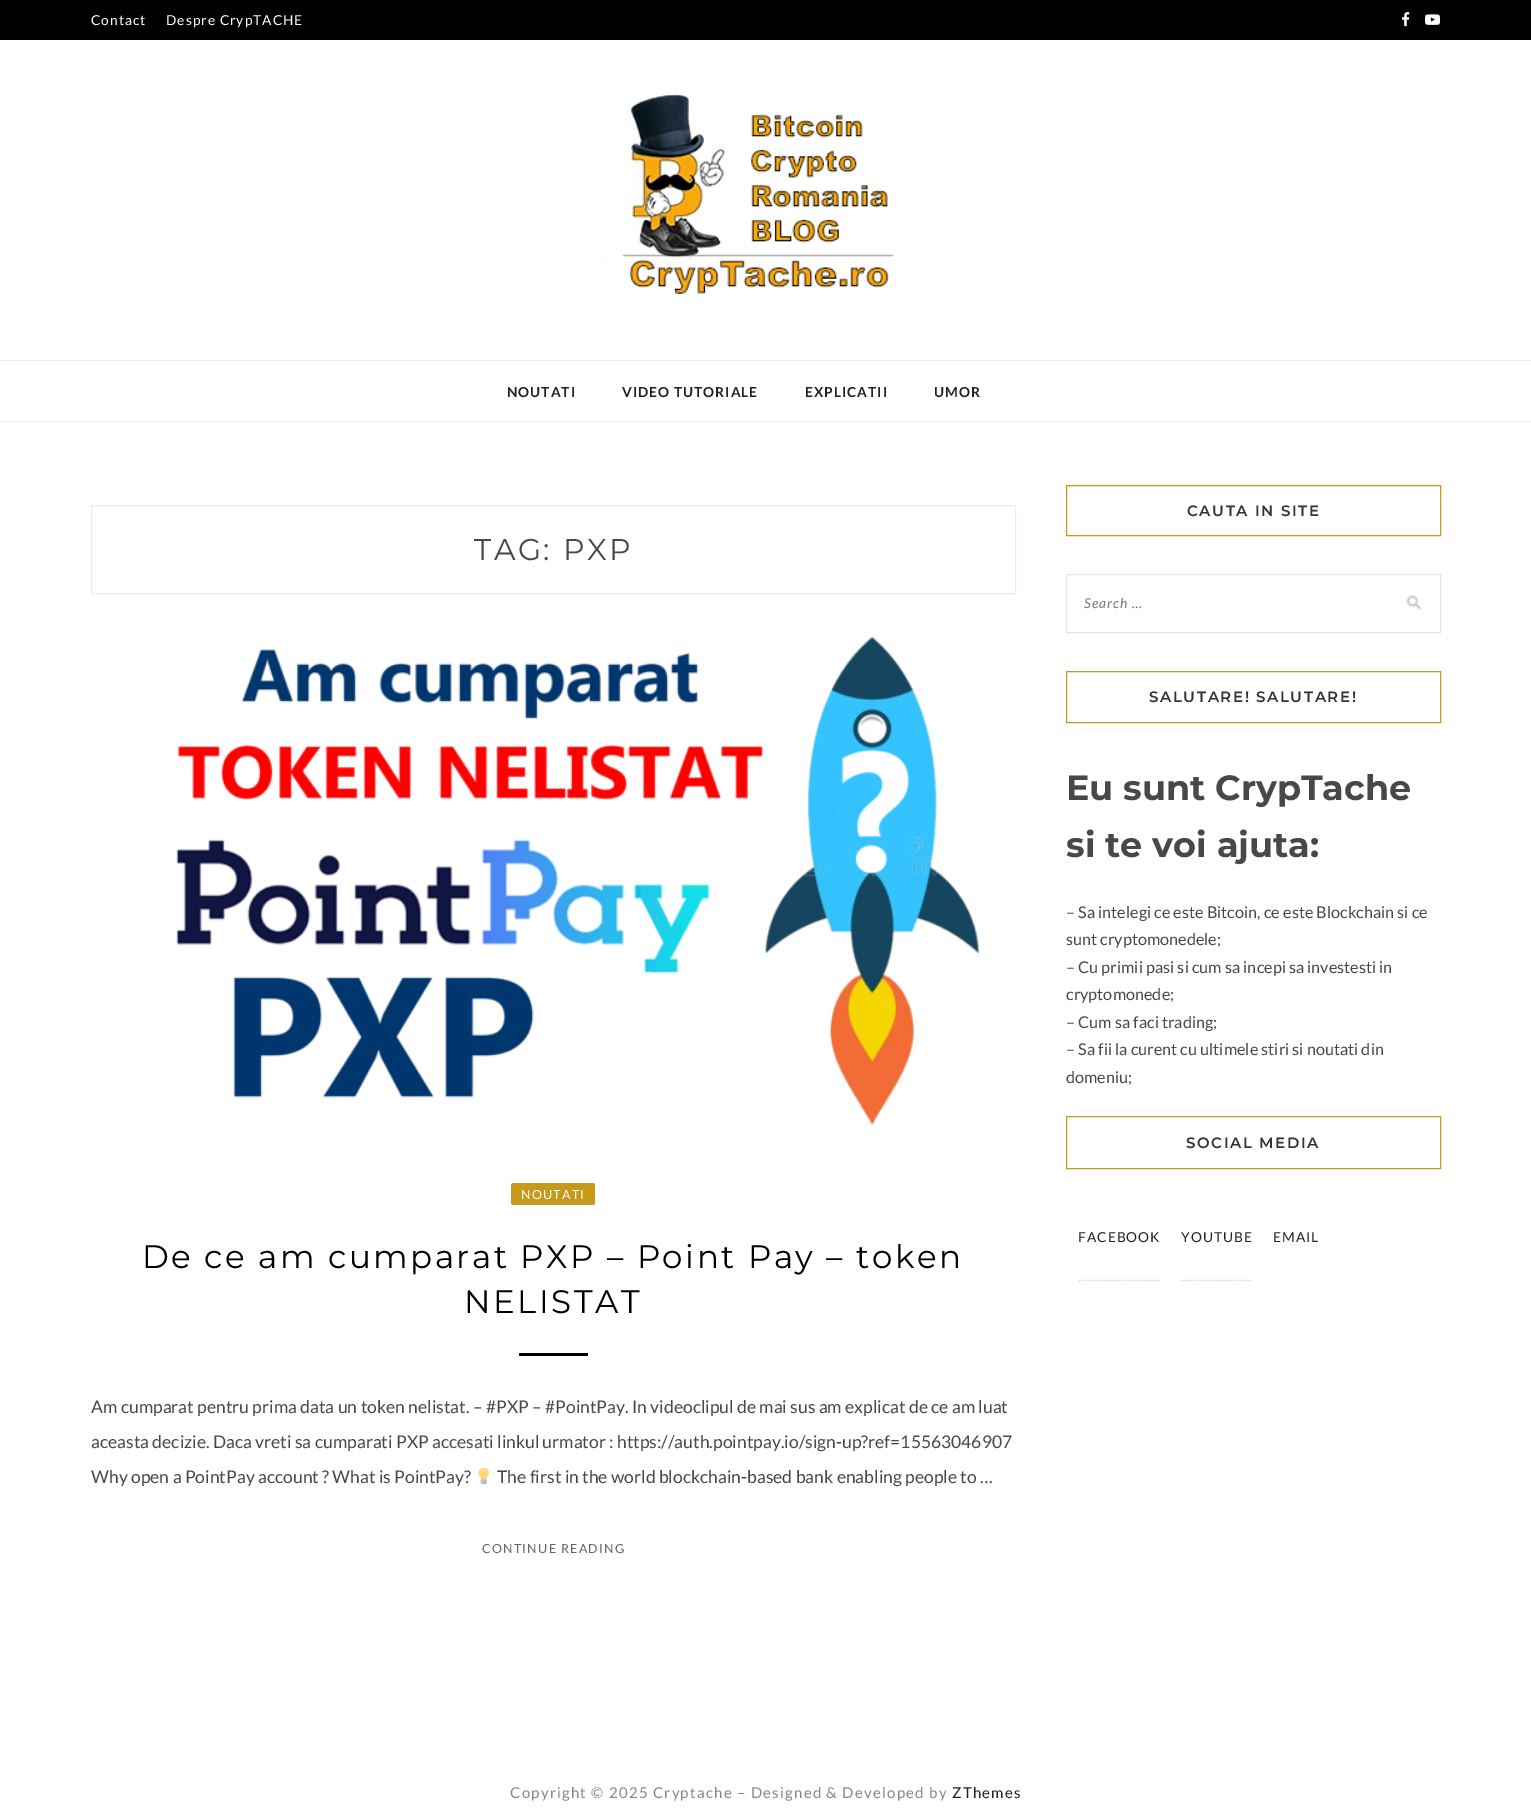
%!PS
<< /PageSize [1531 1810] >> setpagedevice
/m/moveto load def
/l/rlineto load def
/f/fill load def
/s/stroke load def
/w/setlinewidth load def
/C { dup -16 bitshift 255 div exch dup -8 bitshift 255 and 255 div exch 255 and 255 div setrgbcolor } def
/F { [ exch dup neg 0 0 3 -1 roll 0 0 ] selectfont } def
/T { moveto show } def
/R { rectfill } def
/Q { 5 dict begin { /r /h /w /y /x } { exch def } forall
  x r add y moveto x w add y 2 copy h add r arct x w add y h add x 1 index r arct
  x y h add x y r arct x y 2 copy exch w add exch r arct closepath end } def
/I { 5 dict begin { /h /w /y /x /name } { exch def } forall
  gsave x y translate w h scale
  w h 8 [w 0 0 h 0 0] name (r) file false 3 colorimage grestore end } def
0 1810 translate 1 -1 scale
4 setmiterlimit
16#FFFFFF C
0 0 1531 1810 R
16#000000 C
0 0 1531 40 R
/Lato-Regular 13.75 F
16#FFFFFF C
91 25 m 1 0 (Contact) ashow
166 25 m 1 0 (Despre CrypTACHE) ashow
(1.rgb) 1402 12 8 15 I
(2.rgb) 1425 14 15 11 I
(3.rgb) 600 92 303 208 I
16#EEEEEE C
0 360 1531 1 R
0 421 1531 1 R
/Lato-Bold 13.75 F
16#212121 C
507 397 m 1 0 (NOUTATI) ashow
622 397 m 1 0 (VIDEO TUTORIALE) ashow
805 397 m 1 0 (EXPLICATII) ashow
934 397 m 1 0 (UMOR) ashow
16#EDEDED C
91.5 505.5 924 88 rectstroke
/Montserrat-Regular 30 F
16#484848 C
474 560 m 2.5 0 (TAG: PXP) ashow
(4.rgb) 176 636 804 490 I
16#C6991B C
511 1183 84 22 2.5 Q f
/Lato-Regular 12.5 F
16#FFFFFF C
521 1199 m 1.25 0 (NOUTATI) ashow
/Montserrat-Regular 32.5 F
16#000000 C
142 1268 m 2.5 0 (De ce am cumparat PXP – Point Pay – token) ashow
464 1313 m 2.5 0 (NELISTAT) ashow
519 1353 69 3 R
/Lato-Regular 17.5 F
16#484848 C
(Am cumparat pentru prima data un token nelistat. – #PXP – #PointPay. In videoclipul de mai sus am explicat de ce am luat) 91 1413 T
(aceasta decizie. Daca vreti sa cumparati PXP accesati linkul urmator : https://auth.pointpay.io/sign-up?ref=15563046907) 91 1448 T
(Why open a PointPay account ? What is PointPay?) 91 1483 T
(5.rgb) 478 1468 12 17 I
(The first in the world blockchain-based bank enabling people to …) 497 1483 T
/Lato-Regular 12.5 F
16#656565 C
482 1553 m 1.25 0 (CONTINUE READING) ashow
16#C6991B C
1066.5 485.5 374 50 rectstroke
/Montserrat-SemiBold 15 F
16#333333 C
1187 516 m 1.6 0 (CAUTA IN SITE) ashow
(6.rgb) 1406 595 16 15 I
16#E5E5E5 C
1066.5 574.5 374 58 rectstroke
/Lato-Italic 13.75 F
16#757575 C
1084 608 m 1 0 (Search …) ashow
16#C6991B C
1066.5 671.5 374 51 rectstroke
/Montserrat-SemiBold 15 F
16#333333 C
1149 702 m 1.6 0 (SALUTARE! SALUTARE!) ashow
/Montserrat-Bold 35 F
16#484848 C
(Eu sunt CrypTache) 1066 800 T
(si te voi ajuta:) 1066 857 T
/Lato-Regular 16.25 F
(– Sa intelegi ce este Bitcoin, ce este Blockchain si ce) 1066 918 T
(sunt cryptomonedele;) 1066 945 T
(– Cu primii pasi si cum sa incepi sa investesti in) 1066 973 T
(cryptomonede;) 1066 1000 T
(– Cum sa faci trading;) 1066 1028 T
(– Sa fii la curent cu ultimele stiri si noutati din) 1066 1055 T
(domeniu;) 1066 1083 T
16#C6991B C
1066.5 1116.5 374 52 rectstroke
/Montserrat-SemiBold 15 F
16#333333 C
1186 1148 m 1.6 0 (SOCIAL MEDIA) ashow
16#D5D5D5 C
1.2 w
[1.25 1.25] 0 setdash
1079 1280.5 m 81 0 l s
/Lato-Regular 13.75 F
16#212121 C
1078 1242 m 1 0 (FACEBOOK) ashow
16#D5D5D5 C
1181 1280.5 m 71.5 0 l s
16#212121 C
1181 1242 m 1 0 (YOUTUBE) ashow
1273 1242 m 1 0 (EMAIL) ashow
/Lato-Regular 15 F
16#888888 C
510 1798 m 1.25 0 (Copyright © 2025 Cryptache – Designed & Developed by) ashow
16#212121 C
952 1798 m 1.25 0 (ZThemes) ashow
showpage
